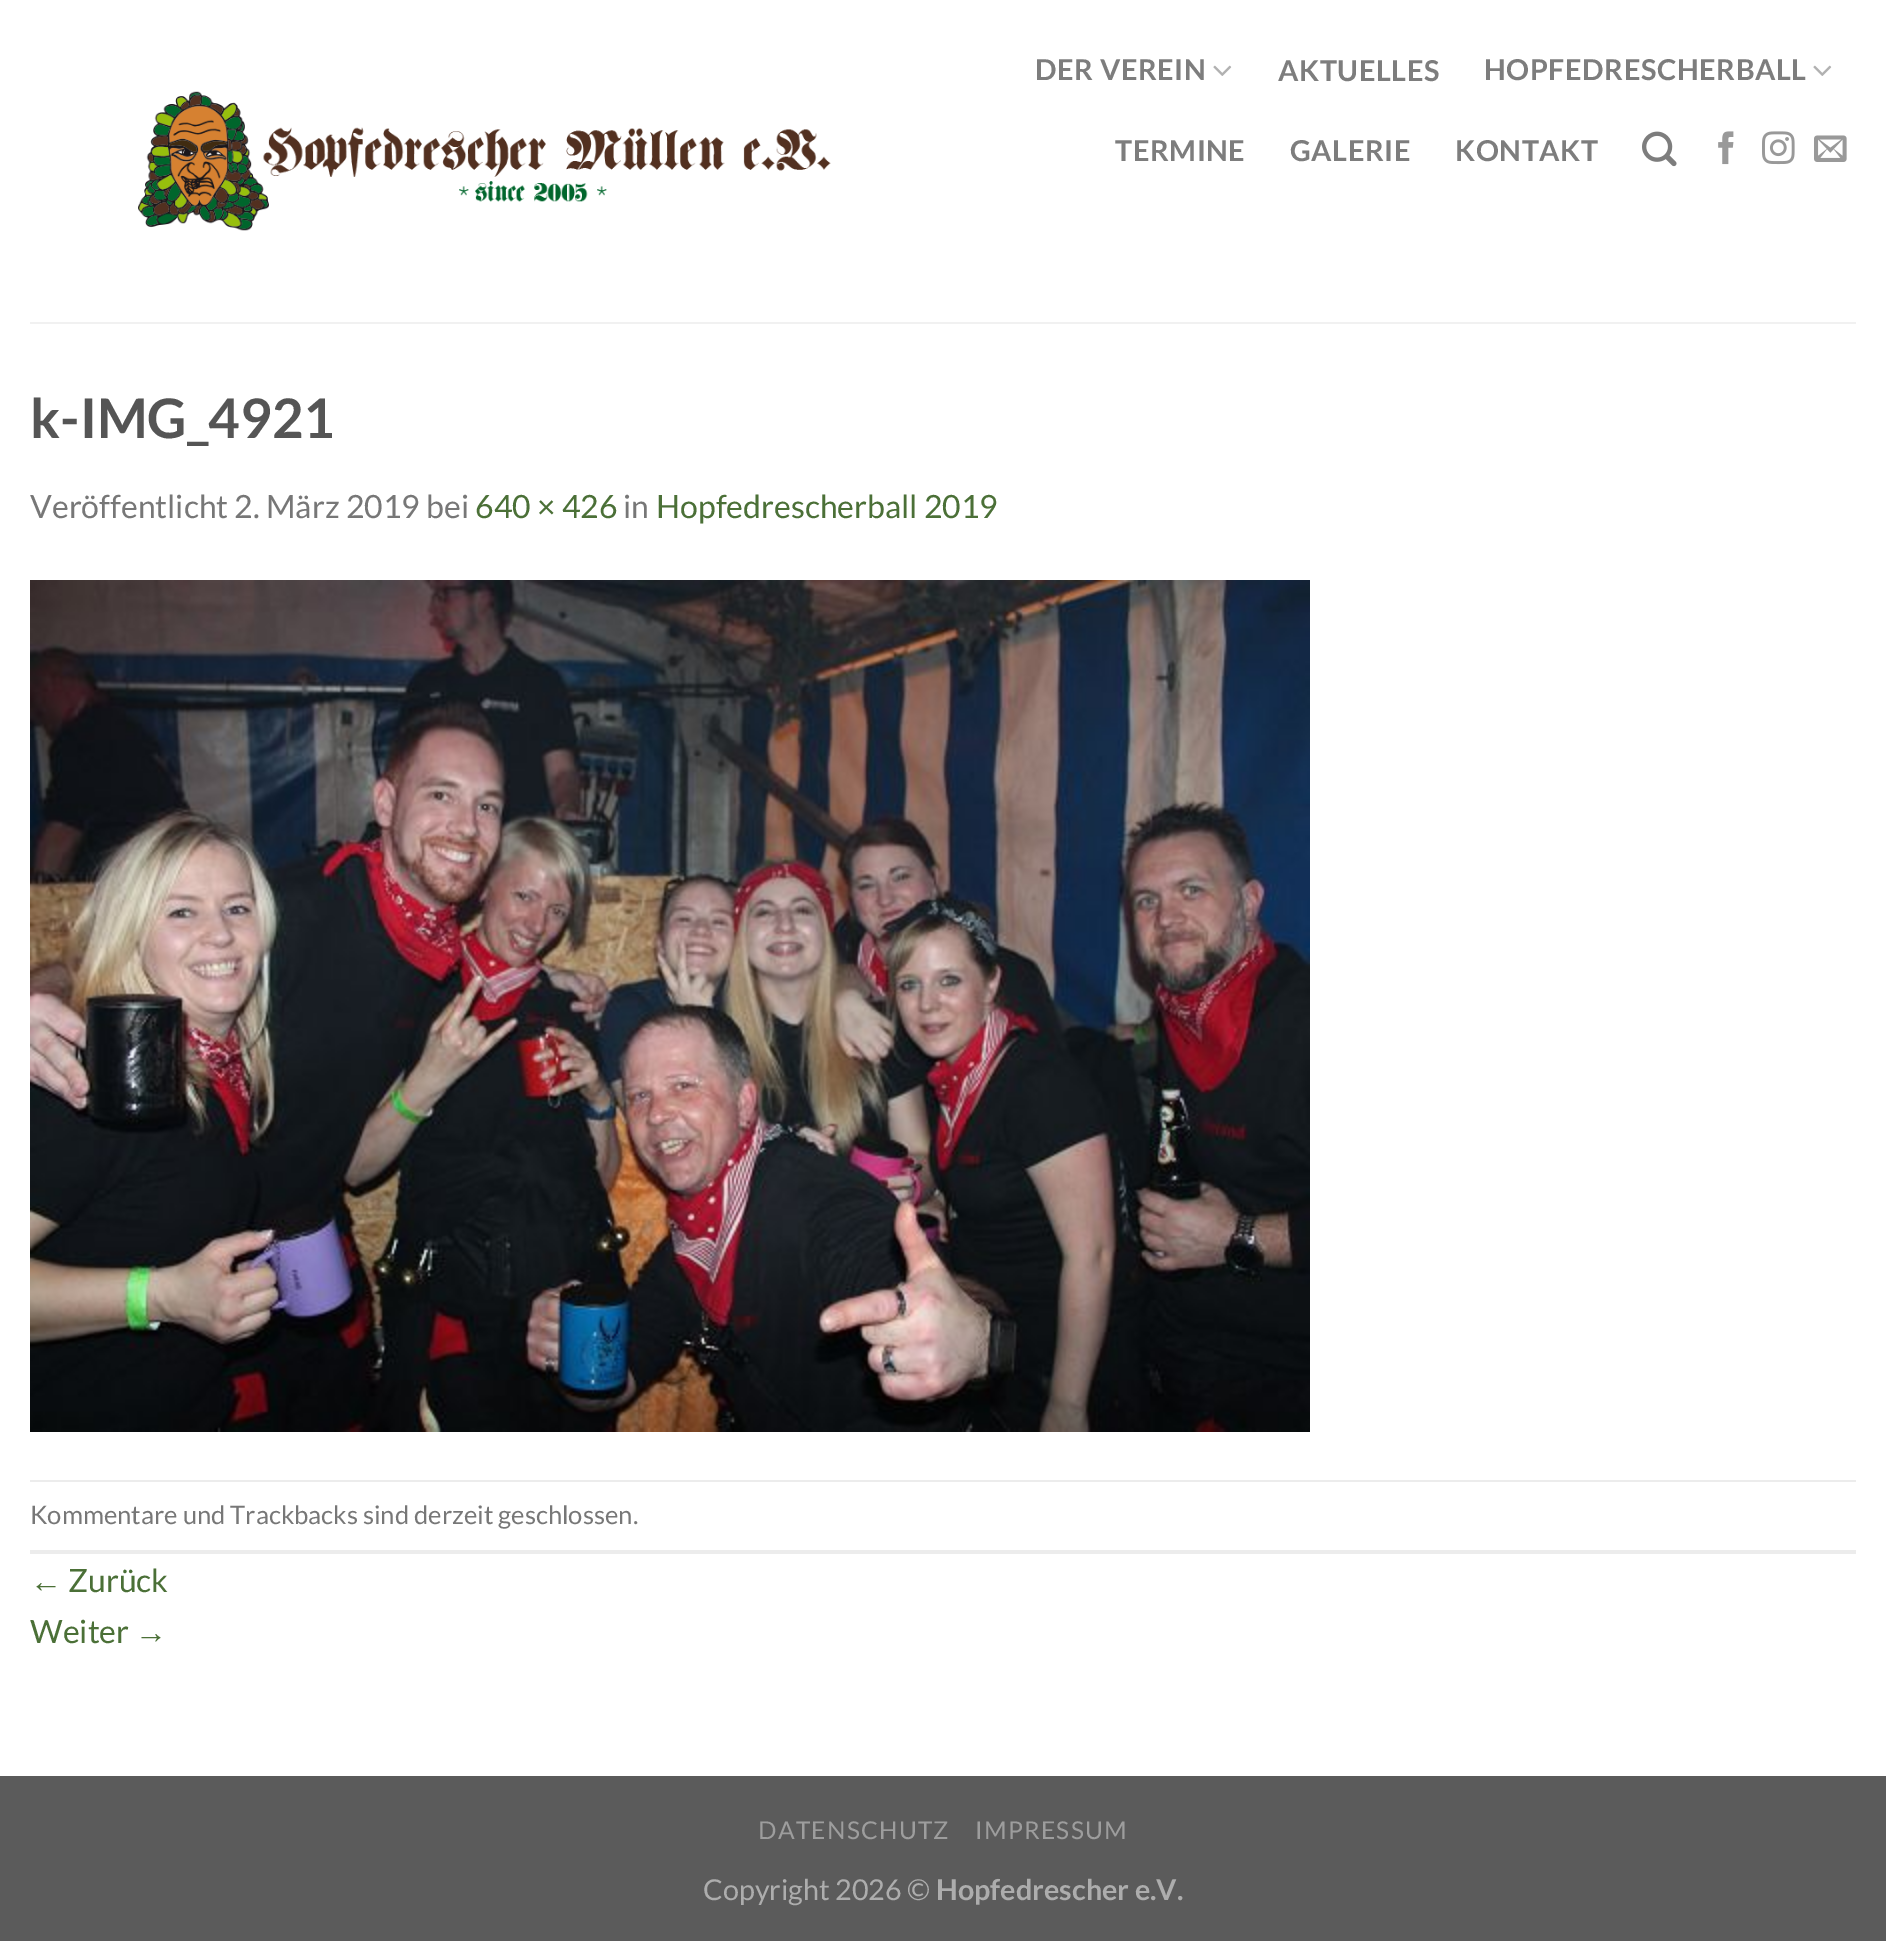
%!PS
<< /PageSize [1886 1941] >> setpagedevice
/m/moveto load def
/C { dup -16 bitshift 255 div exch dup -8 bitshift 255 and 255 div exch 255 and 255 div setrgbcolor } def
/F { [ exch dup neg 0 0 3 -1 roll 0 0 ] selectfont } def
/T { moveto show } def
/R { rectfill } def
/I { 5 dict begin { /h /w /y /x /name } { exch def } forall
  gsave x y translate w h scale
  w h 8 [w 0 0 h 0 0] name (r) file false 3 colorimage grestore end } def
0 1941 translate 1 -1 scale
4 setmiterlimit
16#FFFFFF C
0 0 1886 1941 R
(1.rgb) 138 91 693 140 I
/Lato-Bold 28.75 F
16#7D7D7D C
1035 80 m .6 0 (DER VEREIN) ashow
(2.rgb) 1213 65 19 11 I
1278 81 m .6 0 (AKTUELLES) ashow
1484 80 m .6 0 (HOPFEDRESCHERBALL) ashow
(2.rgb) 1813 65 19 11 I
1115 161 m .6 0 (TERMINE) ashow
1290 161 m .6 0 (GALERIE) ashow
1455 161 m .6 0 (KONTAKT) ashow
(3.rgb) 1642 131 35 36 I
(4.rgb) 1718 131 16 34 I
(5.rgb) 1762 131 33 34 I
(6.rgb) 1814 135 33 27 I
16#F1F1F1 C
30 322 1826 2 R
/Lato-Bold 54.5 F
16#555555 C
(k-IMG_4921) 30 438 T
/Lato-Regular 32 F
16#777777 C
(Veröffentlicht 2. März 2019 bei) 30 518 T
16#4B7037 C
(640 × 426) 475 518 T
16#777777 C
(in) 623 518 T
16#4B7037 C
(Hopfedrescherball 2019) 656 518 T
(7.rgb) 30 580 1280 852 I
16#ECECEC C
30 1480 1826 2 R
30 1550 1826 4 R
/Lato-Regular 25.6 F
16#777777 C
(Kommentare und Trackbacks sind derzeit geschlossen.) 30 1524 T
/LiberationSans-Regular 32 F
16#4B7037 C
(←) 30 1592 T
/Lato-Regular 32 F
(Zurück) 68 1592 T
(Weiter) 30 1643 T
/LiberationSans-Regular 32 F
(→) 135 1643 T
16#5B5B5B C
0 1776 1886 165 R
/Lato-Regular 24.5 F
16#9D9D9D C
758 1839 m 1.25 0 (DATENSCHUTZ) ashow
975 1839 m 1.25 0 (IMPRESSUM) ashow
/Lato-Regular 28.75 F
16#ADADAD C
(Copyright 2026 ©) 703 1900 T
/Lato-Bold 28.75 F
(Hopfedrescher e.V.) 936 1900 T
showpage
